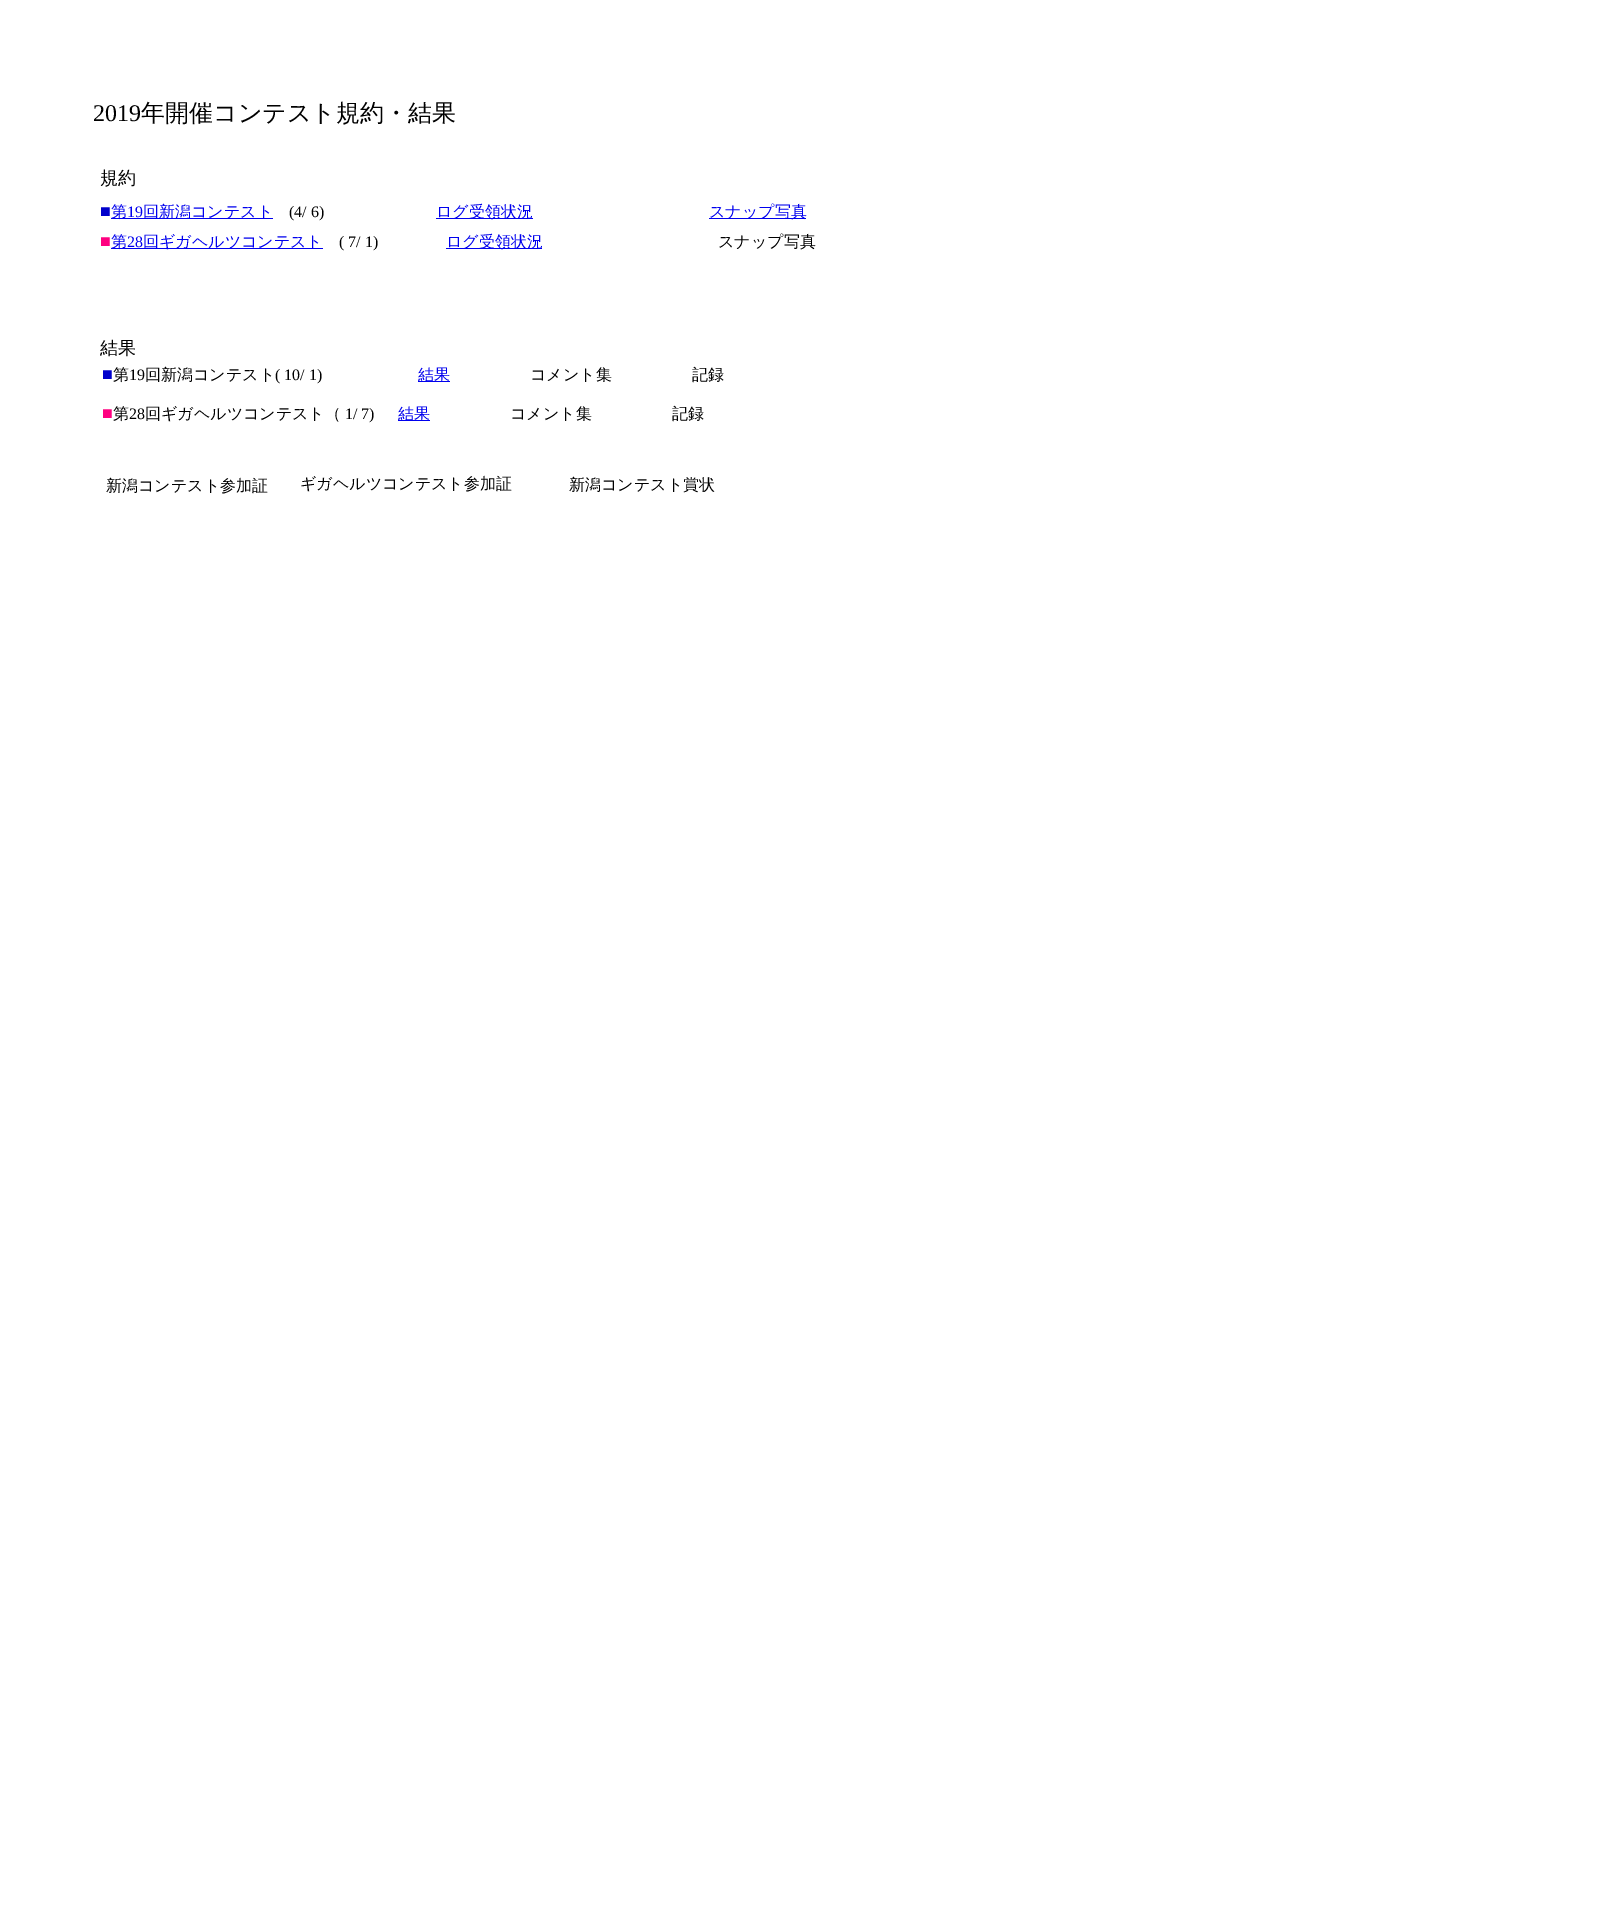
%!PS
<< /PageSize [1605 1923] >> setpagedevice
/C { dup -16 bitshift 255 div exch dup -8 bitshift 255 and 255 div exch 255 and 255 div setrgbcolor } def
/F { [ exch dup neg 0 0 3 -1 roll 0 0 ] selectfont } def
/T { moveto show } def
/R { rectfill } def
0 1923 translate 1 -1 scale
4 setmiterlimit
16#FFFFFF C
0 0 1605 1923 R
/LiberationSerif-Regular 24 F
16#000000 C
(2019) 93 121 T
/WenQuanYiZenHei-Medium 24 F
(年開催コンテスト規約・結果) 141 121 T
/WenQuanYiZenHei-Medium 18 F
(規約) 100 184 T
/LiberationSerif-Regular 18 F
16#0000CC C
(■) 100 217 T
16#0000EE C
111 218 162 1 R
/WenQuanYiZenHei-Medium 16 F
(第) 111 217 T
/LiberationSerif-Regular 16 F
(19) 127 217 T
/WenQuanYiZenHei-Medium 16 F
(回新潟コンテスト) 143 217 T
/LiberationSerif-Regular 16 F
16#000000 C
(\(4/ 6\)) 289 217 T
16#0000EE C
436 218 97 1 R
/WenQuanYiZenHei-Medium 16 F
(ログ受領状況) 436 217 T
709 218 97 1 R
(スナップ写真) 709 217 T
/LiberationSerif-Regular 18 F
16#FF0080 C
(■) 100 247 T
16#0000EE C
111 248 212 1 R
/WenQuanYiZenHei-Medium 16 F
(第) 111 247 T
/LiberationSerif-Regular 16 F
(28) 127 247 T
/WenQuanYiZenHei-Medium 16 F
(回ギガヘルツコンテスト) 143 247 T
/LiberationSerif-Regular 16 F
16#000000 C
(\( 7/ 1\)) 339 247 T
16#0000EE C
446 248 96 1 R
/WenQuanYiZenHei-Medium 16 F
(ログ受領状況) 446 247 T
16#000000 C
(スナップ写真) 718 247 T
/WenQuanYiZenHei-Medium 18 F
(結果) 100 354 T
/LiberationSerif-Regular 18 F
16#0000CC C
(■) 102 380 T
/WenQuanYiZenHei-Medium 16 F
16#000000 C
(第) 113 380 T
/LiberationSerif-Regular 16 F
(19) 129 380 T
/WenQuanYiZenHei-Medium 16 F
(回新潟コンテスト) 145 380 T
/LiberationSerif-Regular 16 F
(\( 10/ 1\)) 275 380 T
16#0000EE C
418 381 32 1 R
/WenQuanYiZenHei-Medium 16 F
(結果) 418 380 T
16#000000 C
(コメント集　　　　　記録) 530 380 T
/LiberationSerif-Regular 18 F
16#FF0080 C
(■) 102 419 T
/WenQuanYiZenHei-Medium 16 F
16#000000 C
(第) 113 419 T
/LiberationSerif-Regular 16 F
(28) 129 419 T
/WenQuanYiZenHei-Medium 16 F
(回ギガヘルツコンテスト（) 145 419 T
/LiberationSerif-Regular 16 F
(1/ 7\)) 345 419 T
16#0000EE C
398 420 32 1 R
/WenQuanYiZenHei-Medium 16 F
(結果) 398 419 T
16#000000 C
(コメント集　　　　　記録) 510 419 T
(新潟コンテスト参加証) 106 491 T
(ギガヘルツコンテスト参加証) 300 489 T
(新潟コンテスト賞状) 569 490 T
showpage
